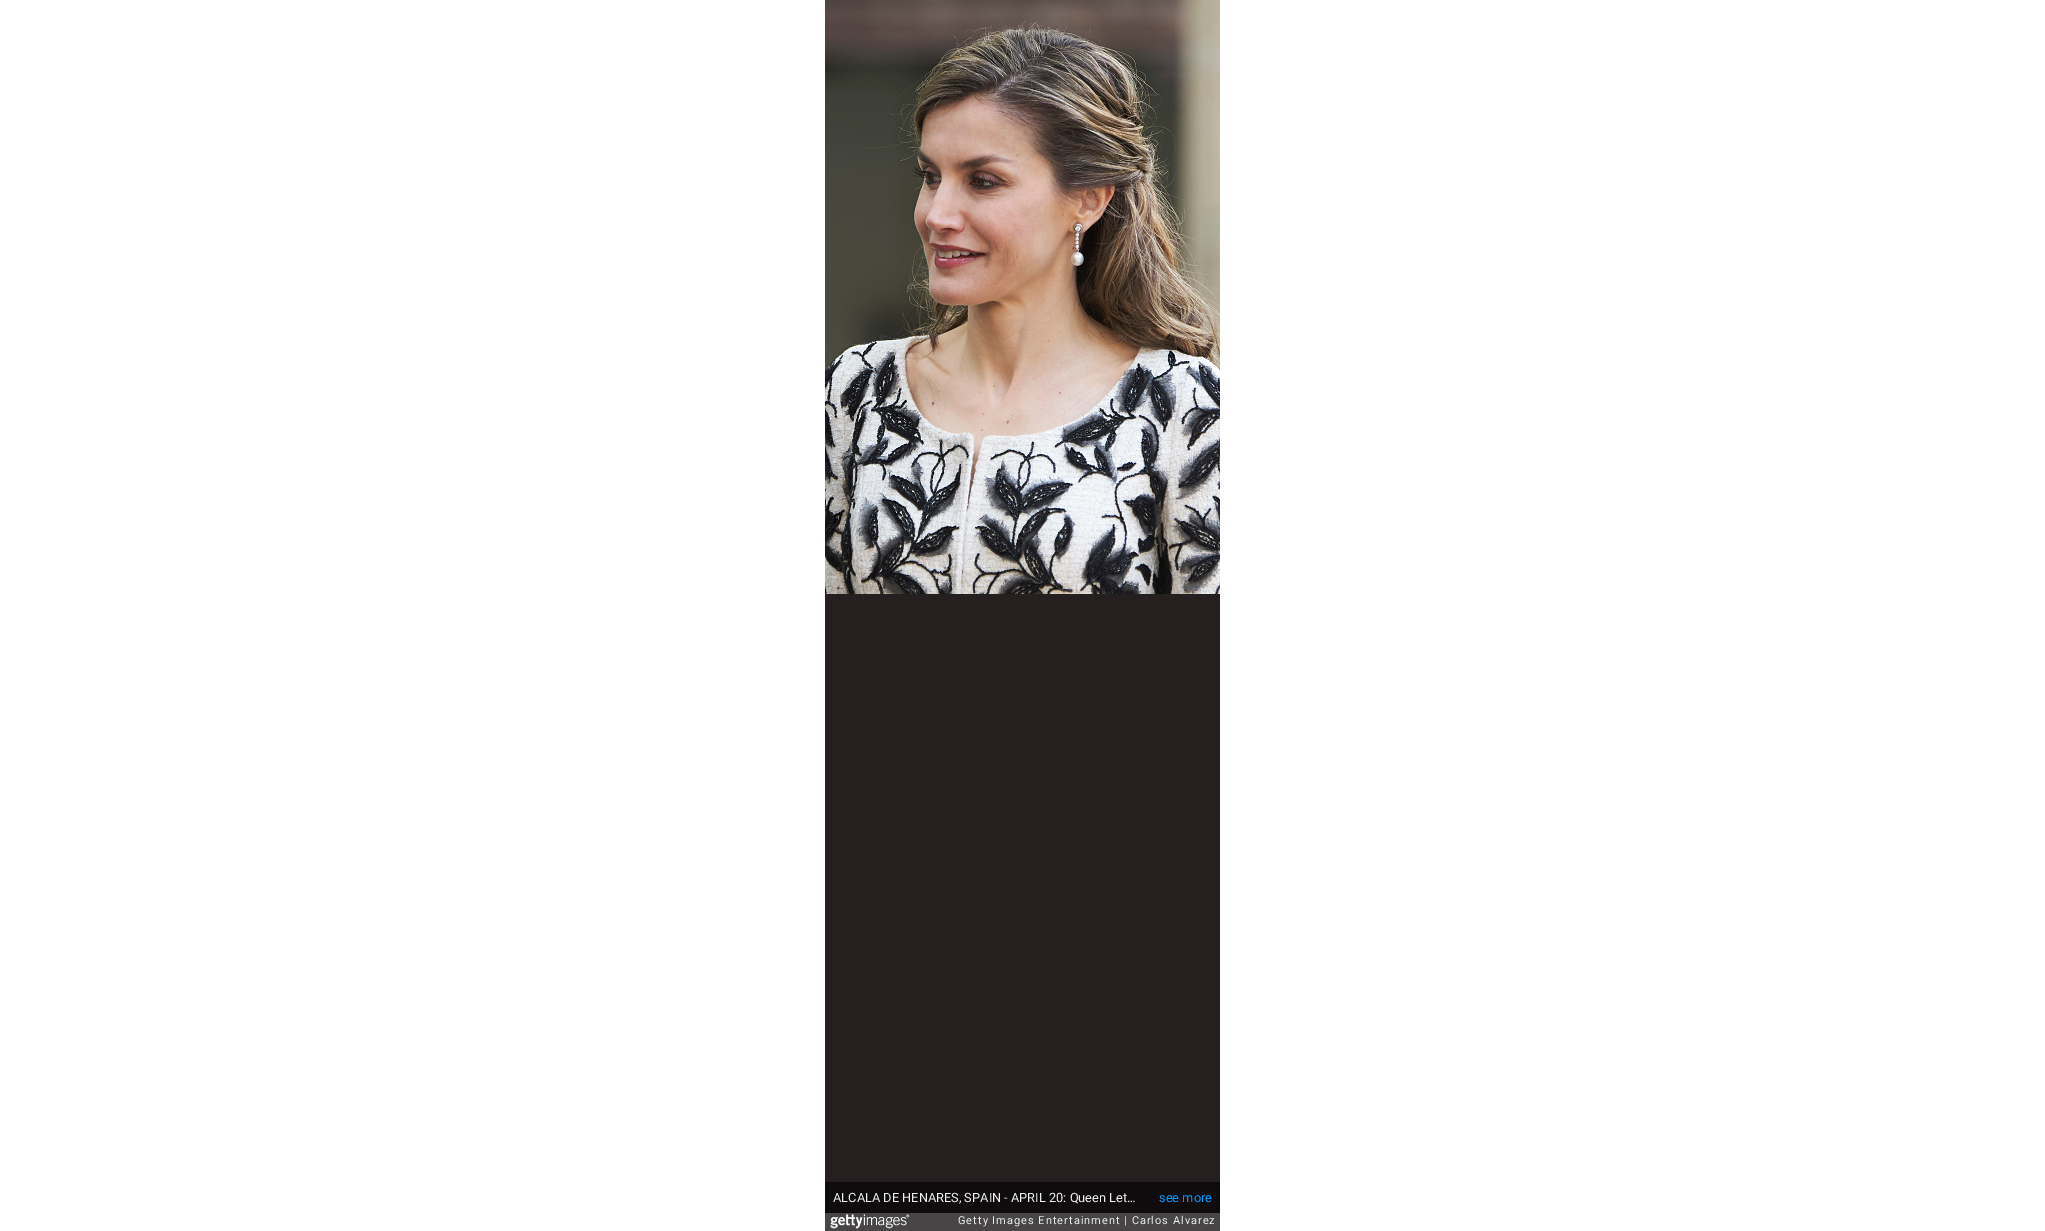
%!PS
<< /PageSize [2045 1231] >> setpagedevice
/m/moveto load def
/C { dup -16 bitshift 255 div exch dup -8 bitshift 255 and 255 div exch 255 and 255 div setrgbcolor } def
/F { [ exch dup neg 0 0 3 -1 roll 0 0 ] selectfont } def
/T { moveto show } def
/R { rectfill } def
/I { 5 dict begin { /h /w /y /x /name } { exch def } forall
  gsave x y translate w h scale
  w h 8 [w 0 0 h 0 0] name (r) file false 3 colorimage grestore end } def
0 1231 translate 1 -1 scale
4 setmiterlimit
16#FFFFFF C
0 0 2045 1231 R
16#251F20 C
825 594 395 588 R
(1.rgb) 825 0 395 594 I
16#0F0C0D C
825 1182 395 31 R
/Roboto-Regular 12.8 F
16#EEEEEE C
(ALCALA DE HENARES, SPAIN - APRIL 20: Queen Let…) 833 1202 T
16#0099FF C
(see more) 1159 1202 T
16#474545 C
825 1213 395 18 R
(2.rgb) 830 1214 80 15 I
/Roboto-Regular 11 F
16#EEEEEE C
958 1224 m 1 0 (Getty Images Entertainment | Carlos Alvarez) ashow
showpage
